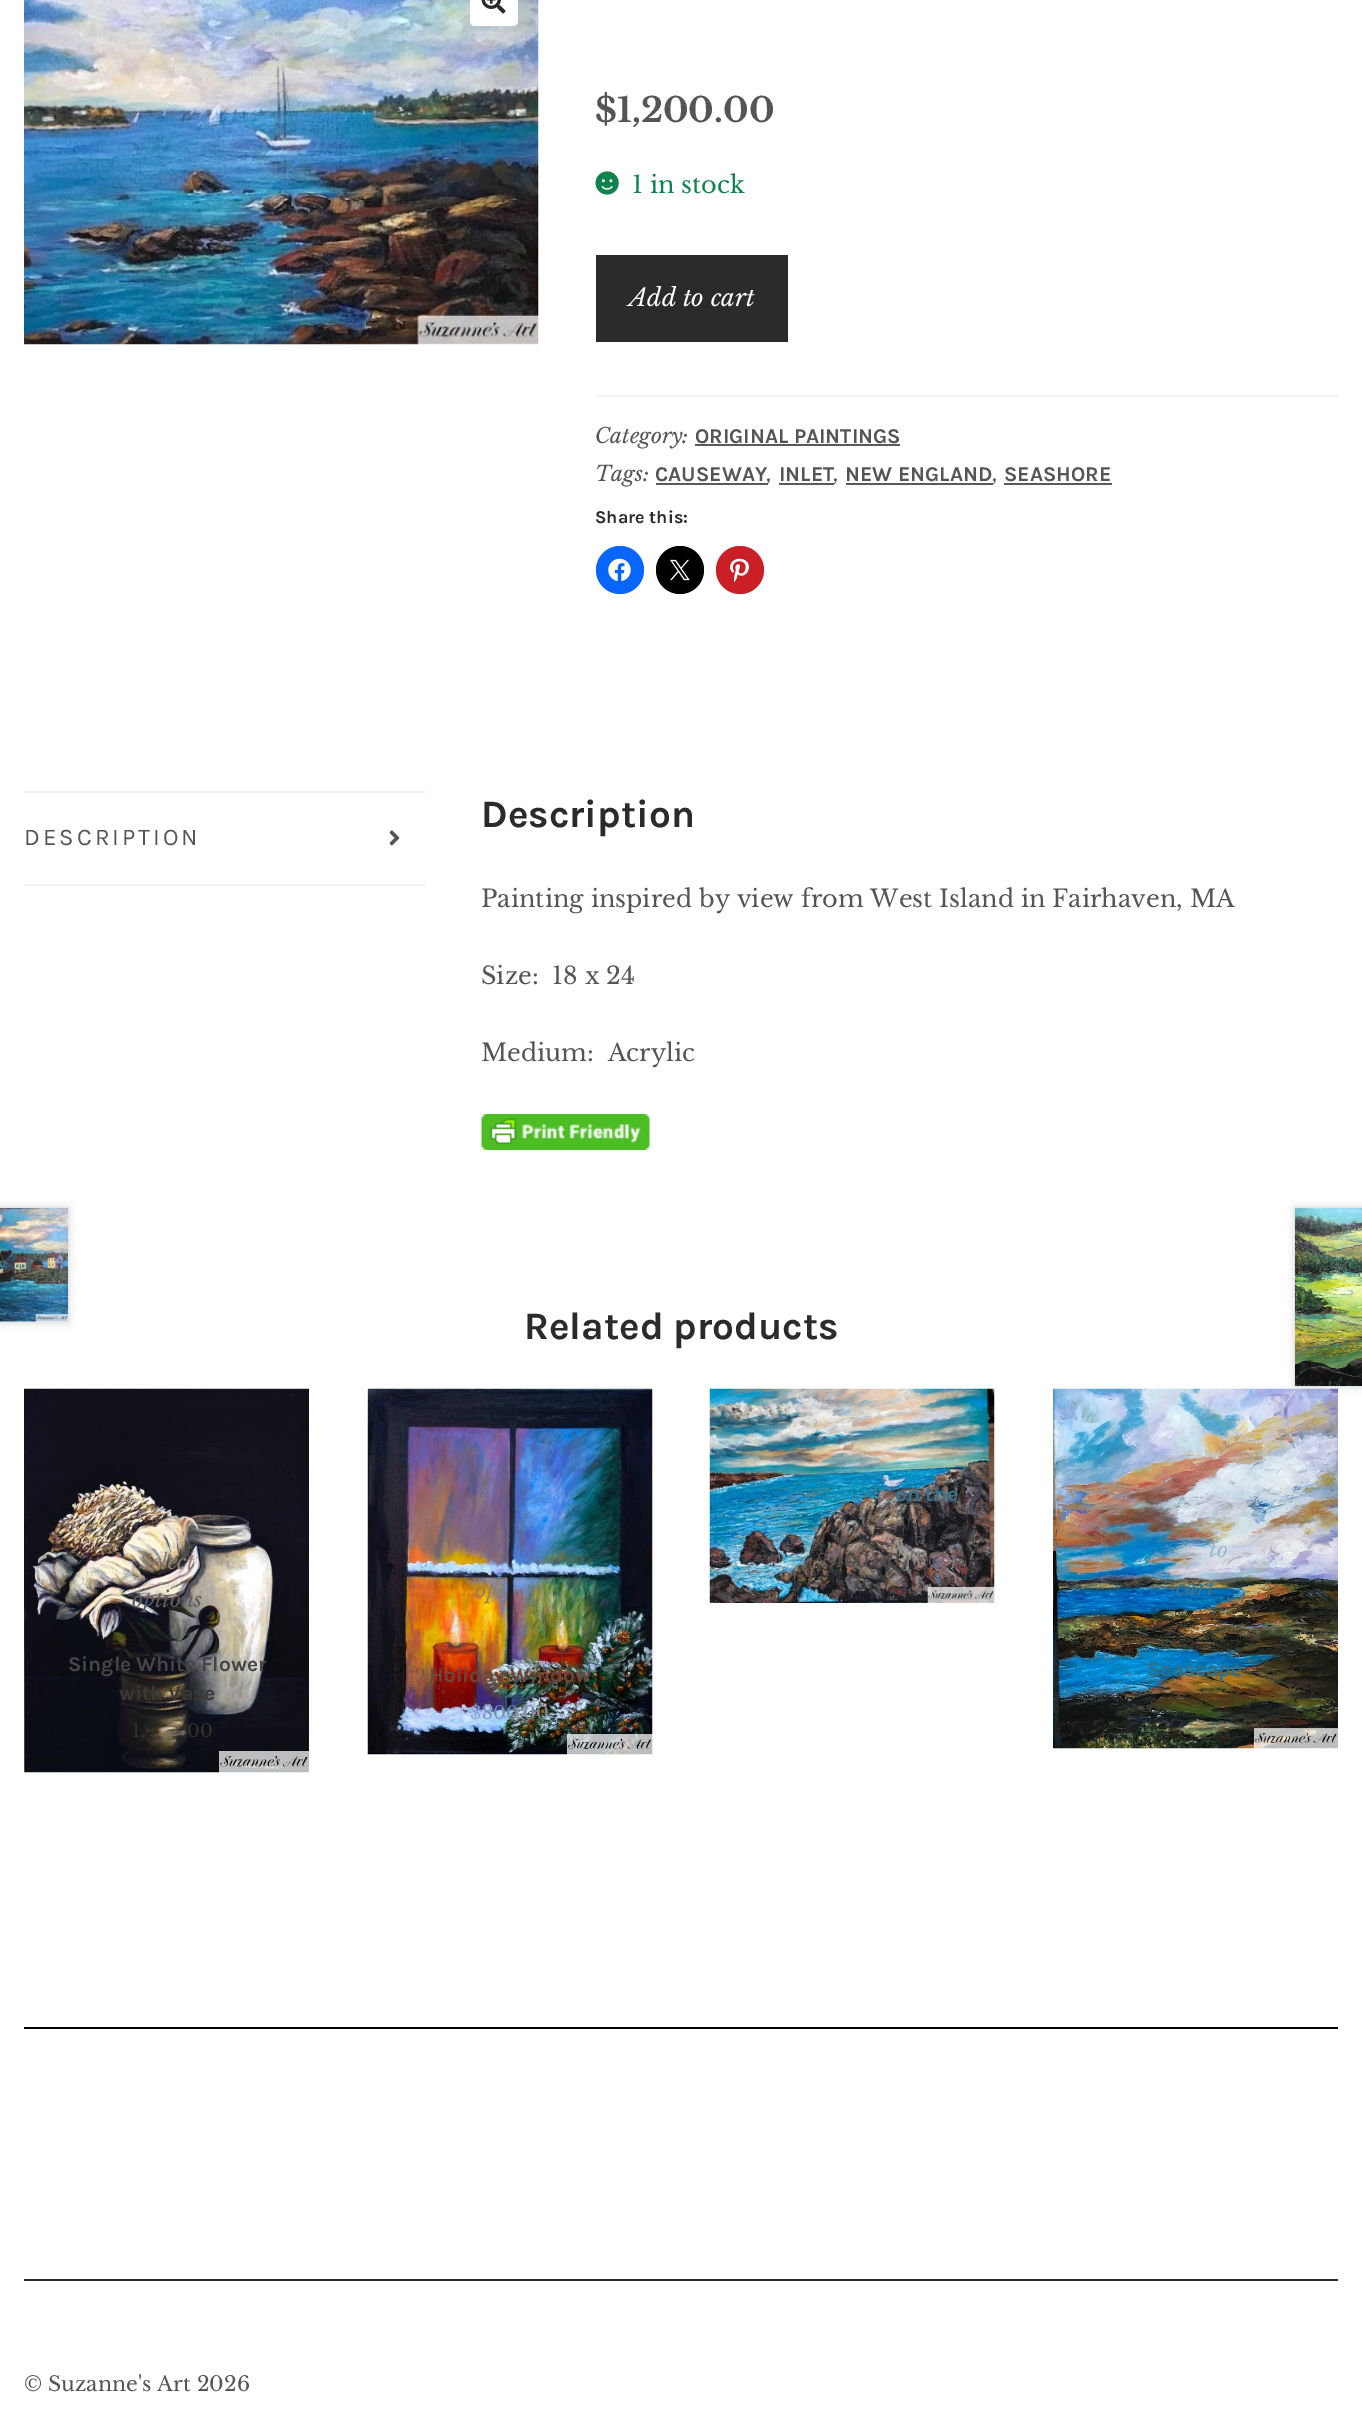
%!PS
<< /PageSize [1362 2415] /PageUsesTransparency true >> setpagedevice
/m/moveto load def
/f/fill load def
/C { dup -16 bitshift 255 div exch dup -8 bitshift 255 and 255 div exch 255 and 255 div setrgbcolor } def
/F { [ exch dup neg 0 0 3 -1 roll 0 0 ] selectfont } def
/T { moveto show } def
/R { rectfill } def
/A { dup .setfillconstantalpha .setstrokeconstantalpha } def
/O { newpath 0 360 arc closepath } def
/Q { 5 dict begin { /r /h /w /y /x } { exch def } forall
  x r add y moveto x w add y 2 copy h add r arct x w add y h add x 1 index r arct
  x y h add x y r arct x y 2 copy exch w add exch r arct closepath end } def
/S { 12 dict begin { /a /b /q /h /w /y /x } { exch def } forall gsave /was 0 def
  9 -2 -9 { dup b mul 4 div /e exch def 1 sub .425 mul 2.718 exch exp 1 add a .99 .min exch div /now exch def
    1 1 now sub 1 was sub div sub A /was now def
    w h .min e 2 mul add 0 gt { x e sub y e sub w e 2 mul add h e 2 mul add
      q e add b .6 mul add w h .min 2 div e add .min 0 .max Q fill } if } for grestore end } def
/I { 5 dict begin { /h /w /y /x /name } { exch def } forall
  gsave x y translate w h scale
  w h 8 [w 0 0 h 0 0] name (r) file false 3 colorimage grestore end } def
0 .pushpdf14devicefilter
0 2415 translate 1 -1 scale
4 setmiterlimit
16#FFFFFF C
0 0 1362 2415 R
(2.rgb) 24 0 515 345 I
470 -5 48 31 5 Q f
(1.rgb) 481 0 25 14 I
/LibreBaskerville-Bold 34 F
16#555555 C
($1,200.00) 595 122 T
(3.rgb) 595 171 24 24 I
/LibreBaskerville-Regular 24 F
16#0F834D C
(1 in stock) 632 193 T
16#2B2B2B C
596 255 192 87 R
/LibreBaskerville-Italic 24 F
16#FFFFFF C
(Add to cart) 629 306 T
16#F2F2F2 C
596 395 742 2 R
/LibreBaskerville-Italic 21 F
16#555555 C
(Category:) 595 443 T
/Karla-Bold 21 F
(ORIGINAL PAINTINGS) 695 443 T
16#5A5A5A C
695 444 205 2 R
/LibreBaskerville-Italic 21 F
16#555555 C
(Tags:) 595 481 T
/Karla-Bold 21 F
(CAUSEWAY) 655 481 T
16#5A5A5A C
656 483 112 2 R
/LibreBaskerville-Italic 21 F
16#555555 C
(,) 767 481 T
/Karla-Bold 21 F
(INLET) 779 481 T
16#5A5A5A C
779 483 55 2 R
/LibreBaskerville-Italic 21 F
16#555555 C
(,) 834 481 T
/Karla-Bold 21 F
(NEW ENGLAND) 845 481 T
16#5A5A5A C
846 483 147 2 R
/LibreBaskerville-Italic 21 F
16#555555 C
(,) 993 481 T
/Karla-Bold 21 F
(SEASHORE) 1004 481 T
16#5A5A5A C
1004 483 108 2 R
/Karla-Bold 18 F
16#2B2B2B C
(Share this:) 595 523 T
16#0866FF C
620 570 24 O f
(4.rgb) 608 558 23 24 I
16#000000 C
680 570 24 O f
(5.rgb) 670 559 20 22 I
16#CA1F27 C
740 570 24 O f
(6.rgb) 730 558 19 24 I
16#F2F2F2 C
24 791 401 2 R
24 884 401 2 R
/Karla-Regular 24 F
16#555555 C
24 845 m 3 0 (DESCRIPTION) ashow
(7.rgb) 389 830 11 16 I
/Karla-Bold 38.75 F
16#2B2B2B C
(Description) 481 827 T
/LibreBaskerville-Regular 24 F
16#555555 C
(Painting inspired by view from West Island in Fairhaven, MA) 481 907 T
(Size:  18 x 24) 481 984 T
(Medium:  Acrylic) 481 1061 T
(8.rgb) 481 1114 169 36 I
16#000000 C
-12 1208 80 114 0 4 .2 S
16#FFFFFF C
0 1321 68 1 R
(9.rgb) 0 1208 68 114 I
(14.rgb) 1053 1388 285 361 I
16#000000 C
1295 1208 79 178 0 4 .2 S
(10.rgb) 1295 1208 67 178 I
/Karla-Bold 38.75 F
16#2B2B2B C
(Related products) 524 1339 T
(11.rgb) 709 1388 286 215 I
/Karla-Bold 21 F
16#337591 C
(on the) 895 1501 T
/LibreBaskerville-Regular 18 F
16#544C49 C
(2,400.00) 817 1567 T
(12.rgb) 24 1388 285 385 I
/LibreBaskerville-Italic 21 F
16#8D8174 C
(Select) 139 1569 T
16#605D60 C
(options) 132 1607 T
/Karla-Bold 21 F
16#454548 C
(Single White Flower) 68 1671 T
16#3B3834 C
(with Vase) 119 1700 T
/LibreBaskerville-Regular 18 F
16#36312D C
(1,) 132 1737 T
(00) 187 1737 T
(13.rgb) 367 1388 286 367 I
/LibreBaskerville-Italic 21 F
16#656B98 C
(t) 529 1560 T
16#91805C C
(opt) 475 1598 T
/Karla-Bold 21 F
16#6E453A C
(Holiday Window) 429 1682 T
/LibreBaskerville-Regular 18 F
16#93A4D1 C
($) 470 1719 T
16#7B8EA5 C
(800.00) 482 1719 T
/LibreBaskerville-Italic 21 F
16#9BB8CD C
(to) 1209 1557 T
16#3E748B C
(cart) 1176 1595 T
/Karla-Bold 21 F
16#2F7087 C
(Seascape) 1147 1676 T
/LibreBaskerville-Regular 18 F
16#35372C C
($) 1149 1713 T
16#000000 C
24 2027 1314 2 R
16#2B2B2B C
24 2279 1314 2 R
/LibreBaskerville-Regular 20.5 F
16#555555 C
(© Suzanne's Art 2026) 24 2391 T
.poppdf14devicefilter showpage
